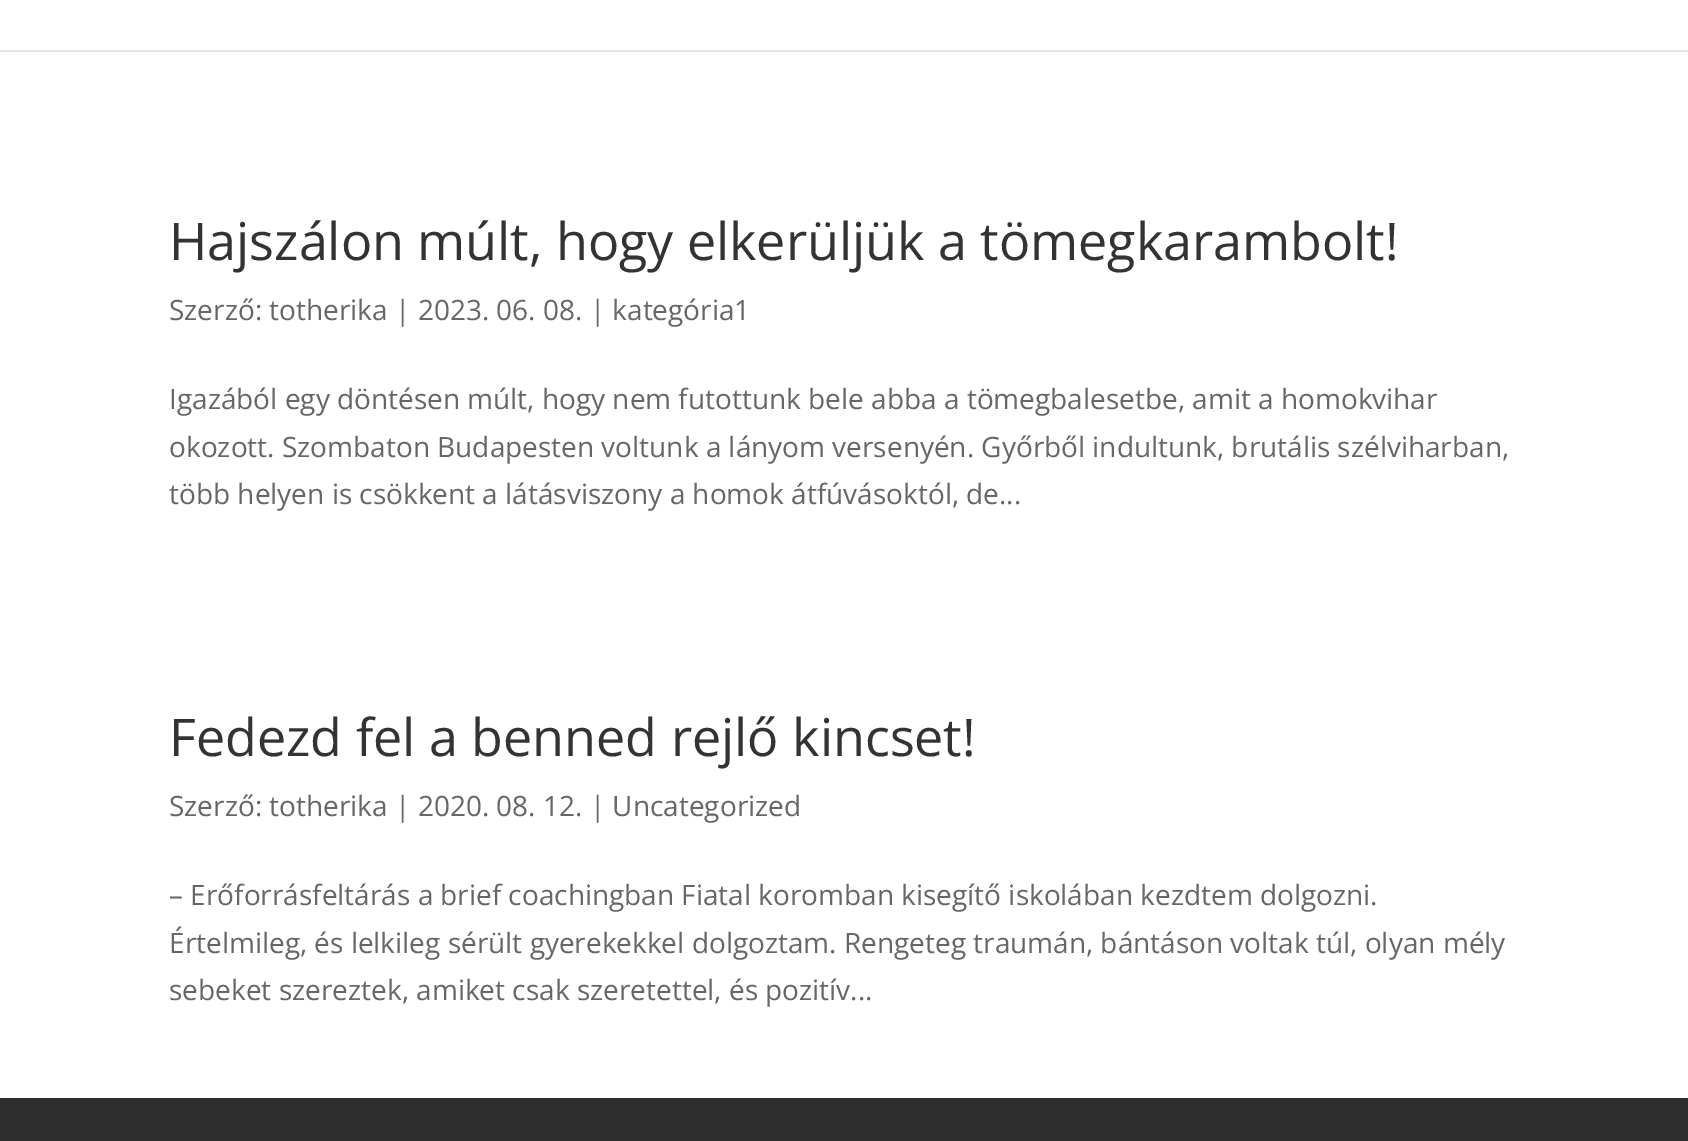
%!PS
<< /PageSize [1688 1141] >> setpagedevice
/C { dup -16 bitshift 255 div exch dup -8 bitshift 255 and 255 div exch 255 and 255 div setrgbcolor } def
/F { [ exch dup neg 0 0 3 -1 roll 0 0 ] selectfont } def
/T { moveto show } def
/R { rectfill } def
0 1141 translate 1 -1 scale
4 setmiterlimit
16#FFFFFF C
0 0 1688 1141 R
16#E6E6E6 C
0 50 1688 2 R
/OpenSans-Regular 52 F
16#333333 C
(Hajszálon múlt, hogy elkerüljük a tömegkarambolt!) 169 260 T
/OpenSans-Regular 28 F
16#666666 C
(Szerző: totherika | 2023. 06. 08. | kategória1) 169 320 T
(Igazából egy döntésen múlt, hogy nem futottunk bele abba a tömegbalesetbe, amit a homokvihar) 169 409 T
(okozott. Szombaton Budapesten voltunk a lányom versenyén. Győrből indultunk, brutális szélviharban,) 169 457 T
(több helyen is csökkent a látásviszony a homok átfúvásoktól, de...) 169 504 T
/OpenSans-Regular 52 F
16#333333 C
(Fedezd fel a benned rejlő kincset!) 169 756 T
/OpenSans-Regular 28 F
16#666666 C
(Szerző: totherika | 2020. 08. 12. | Uncategorized) 169 816 T
(– Erőforrásfeltárás a brief coachingban Fiatal koromban kisegítő iskolában kezdtem dolgozni.) 169 905 T
(Értelmileg, és lelkileg sérült gyerekekkel dolgoztam. Rengeteg traumán, bántáson voltak túl, olyan mély) 169 953 T
(sebeket szereztek, amiket csak szeretettel, és pozitív...) 169 1000 T
16#2D2D2D C
0 1098 1688 43 R
showpage
